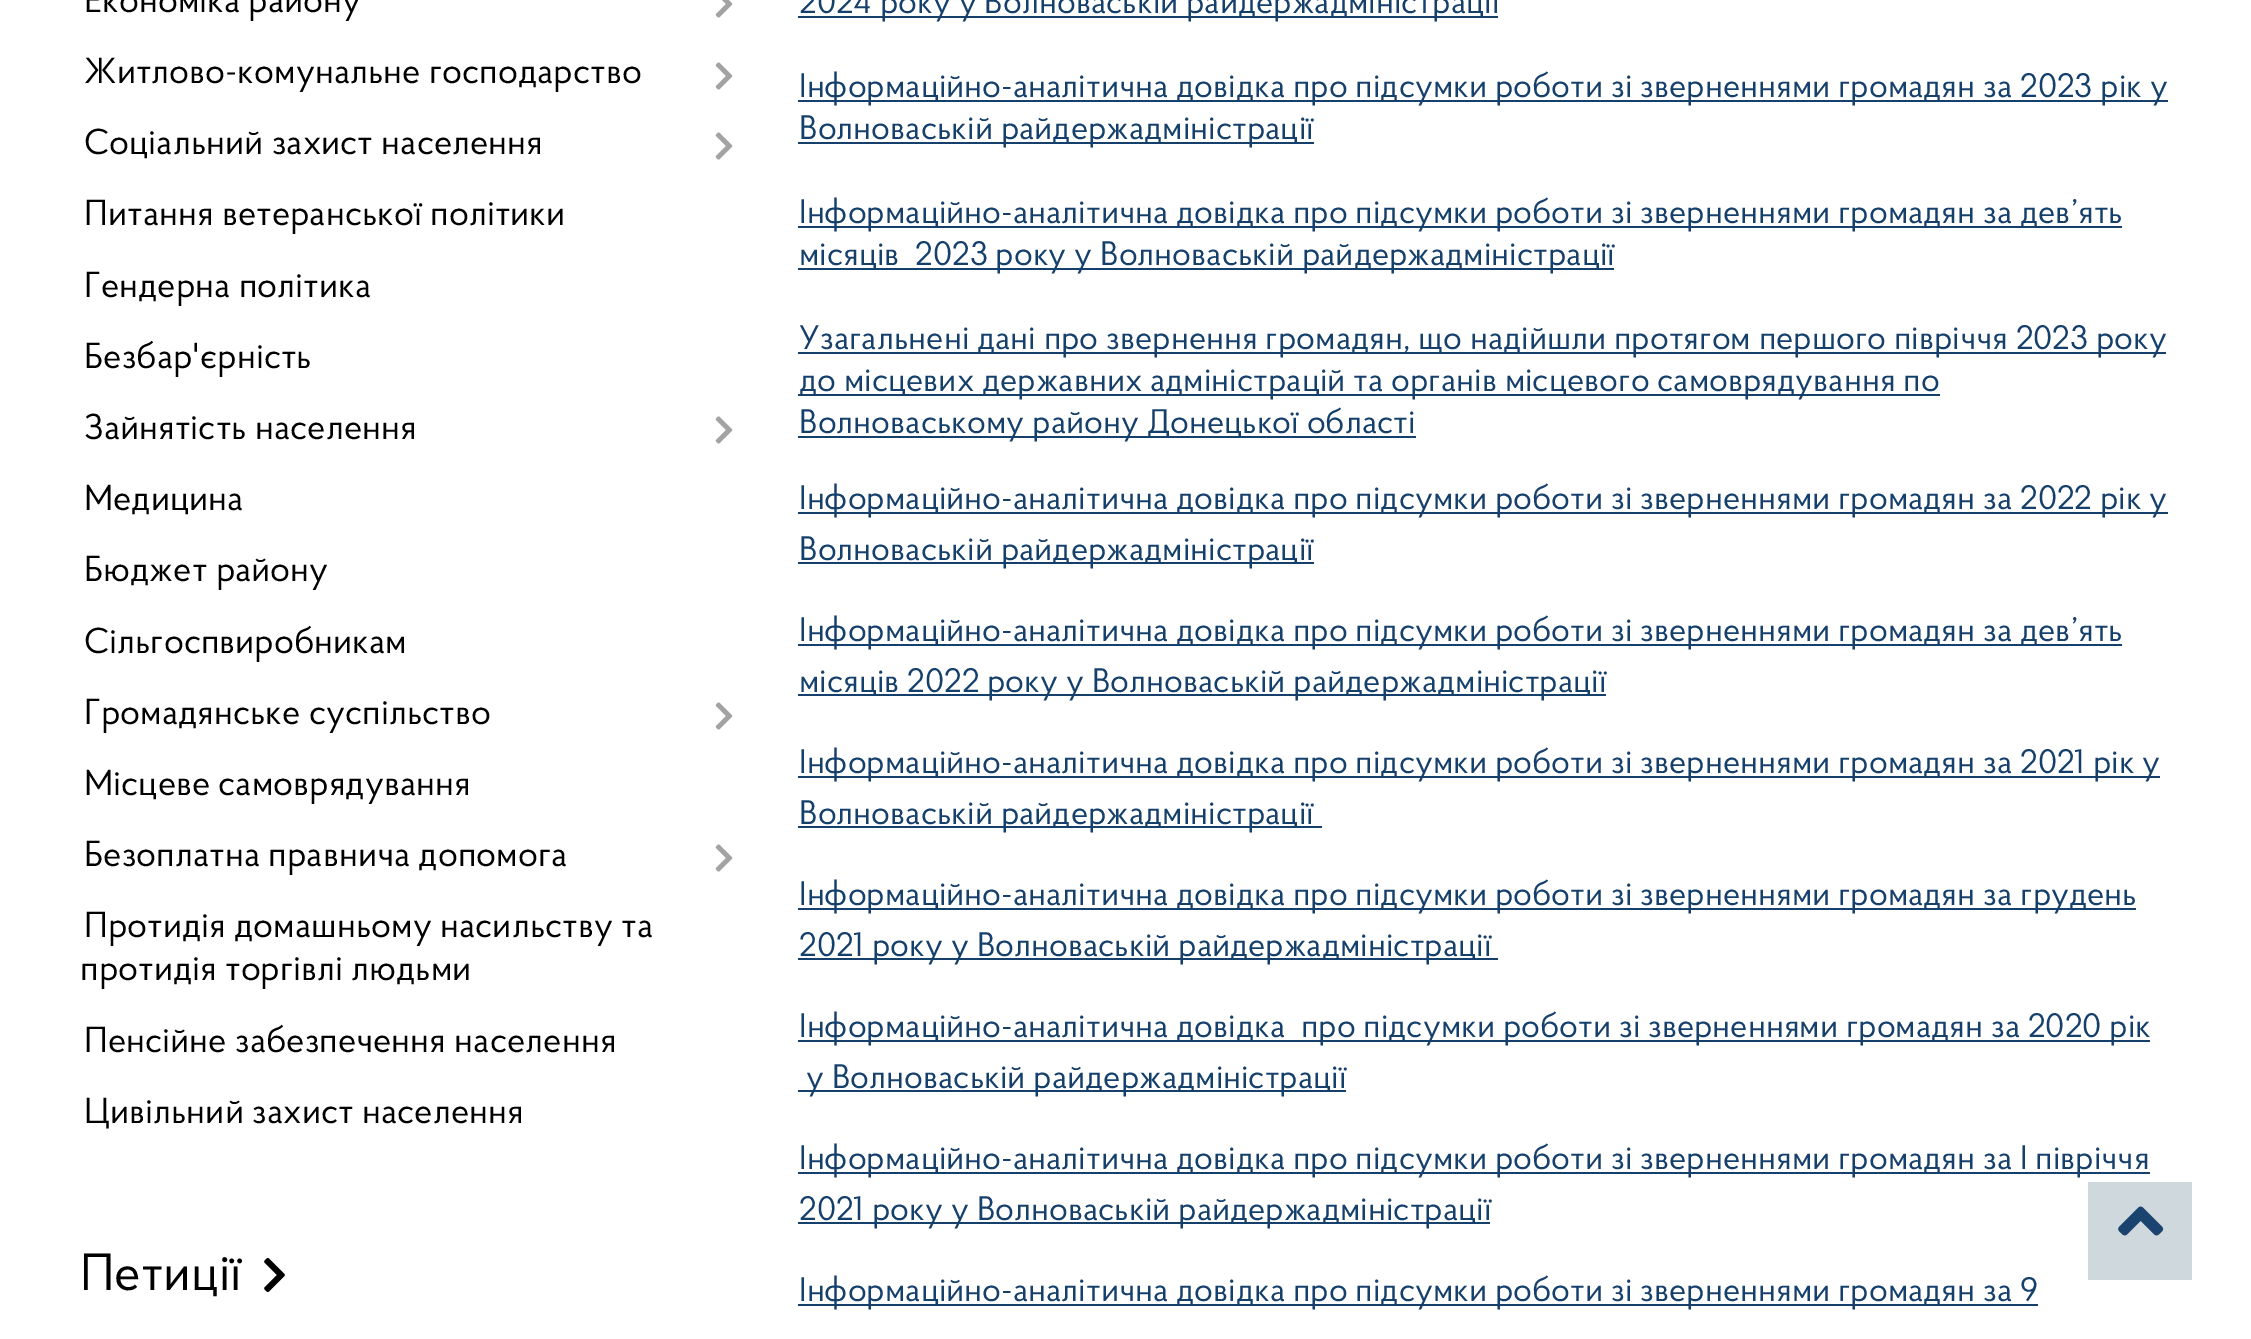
%!PS
<< /PageSize [2251 1339] >> setpagedevice
/C { dup -16 bitshift 255 div exch dup -8 bitshift 255 and 255 div exch 255 and 255 div setrgbcolor } def
/F { [ exch dup neg 0 0 3 -1 roll 0 0 ] selectfont } def
/T { moveto show } def
/R { rectfill } def
/I { 5 dict begin { /h /w /y /x /name } { exch def } forall
  gsave x y translate w h scale
  w h 8 [w 0 0 h 0 0] name (r) file false 3 colorimage grestore end } def
0 1339 translate 1 -1 scale
4 setmiterlimit
16#FFFFFF C
0 0 2251 1339 R
/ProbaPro-Regular 36 F
16#000000 C
(Економіка району) 84 12 T
(1.rgb) 715 0 18 18 I
(Житлово-комунальне господарство) 84 83 T
(2.rgb) 715 62 18 28 I
(Соціальний захист населення) 84 154 T
(2.rgb) 715 132 18 28 I
(Питання ветеранської політики) 84 225 T
(Гендерна політика) 84 297 T
(Безбар'єрність) 84 368 T
(Зайнятість населення) 84 439 T
(2.rgb) 715 416 18 28 I
(Медицина) 84 510 T
(Бюджет району) 84 581 T
(Сільгоспвиробникам) 84 653 T
(Громадянське суспільство) 84 724 T
(2.rgb) 715 702 18 28 I
(Місцеве самоврядування) 84 795 T
(Безоплатна правнича допомога) 84 866 T
(2.rgb) 715 844 18 28 I
(Протидія домашньому насильству та) 84 937 T
(протидія торгівлі людьми) 80 980 T
(Пенсійне забезпечення населення) 84 1052 T
(Цивільний захист населення) 84 1123 T
/ProbaPro-Regular 52 F
(Петиції) 80 1290 T
(3.rgb) 264 1258 21 34 I
16#16406C C
798 16 700 2 R
/ProbaPro-Regular 34 F
(2024 року у Волноваській райдержадміністрації) 799 13 T
798 100 1370 2 R
(Інформаційно-аналітична довідка про підсумки роботи зі зверненнями громадян за 2023 рік у) 799 97 T
798 142 516 2 R
(Волноваській райдержадміністрації) 799 139 T
798 226 1324 2 R
(Інформаційно-аналітична довідка про підсумки роботи зі зверненнями громадян за дев’ять) 799 223 T
798 268 816 2 R
(місяців  2023 року у Волноваській райдержадміністрації) 799 265 T
798 352 1368 2 R
(Узагальнені дані про звернення громадян, що надійшли протягом першого півріччя 2023 року) 799 349 T
798 394 1142 2 R
(до місцевих державних адміністрацій та органів місцевого самоврядування по) 799 391 T
798 436 618 2 R
(Волноваському району Донецької області) 799 433 T
798 512 1370 2 R
(Інформаційно-аналітична довідка про підсумки роботи зі зверненнями громадян за 2022 рік у) 799 509 T
798 562 516 2 R
(Волноваській райдержадміністрації) 799 560 T
798 644 1324 2 R
(Інформаційно-аналітична довідка про підсумки роботи зі зверненнями громадян за дев’ять) 799 641 T
798 694 808 2 R
(місяців 2022 року у Волноваській райдержадміністрації) 799 692 T
798 776 1362 2 R
(Інформаційно-аналітична довідка про підсумки роботи зі зверненнями громадян за 2021 рік у) 799 773 T
798 826 524 2 R
(Волноваській райдержадміністрації) 799 824 T
798 908 1338 2 R
(Інформаційно-аналітична довідка про підсумки роботи зі зверненнями громадян за грудень) 799 905 T
798 958 700 2 R
(2021 року у Волноваській райдержадміністрації) 799 956 T
798 1040 1352 2 R
(Інформаційно-аналітична довідка  про підсумки роботи зі зверненнями громадян за 2020 рік) 799 1037 T
798 1090 548 2 R
(у Волноваській райдержадміністрації) 806 1088 T
798 1172 1352 2 R
(Інформаційно-аналітична довідка про підсумки роботи зі зверненнями громадян за І півріччя) 799 1169 T
798 1222 692 2 R
(2021 року у Волноваській райдержадміністрації) 799 1220 T
798 1304 1240 2 R
(Інформаційно-аналітична довідка про підсумки роботи зі зверненнями громадян за 9) 799 1301 T
16#CFD8DD C
2088 1182 104 98 R
(4.rgb) 2118 1206 46 30 I
showpage
